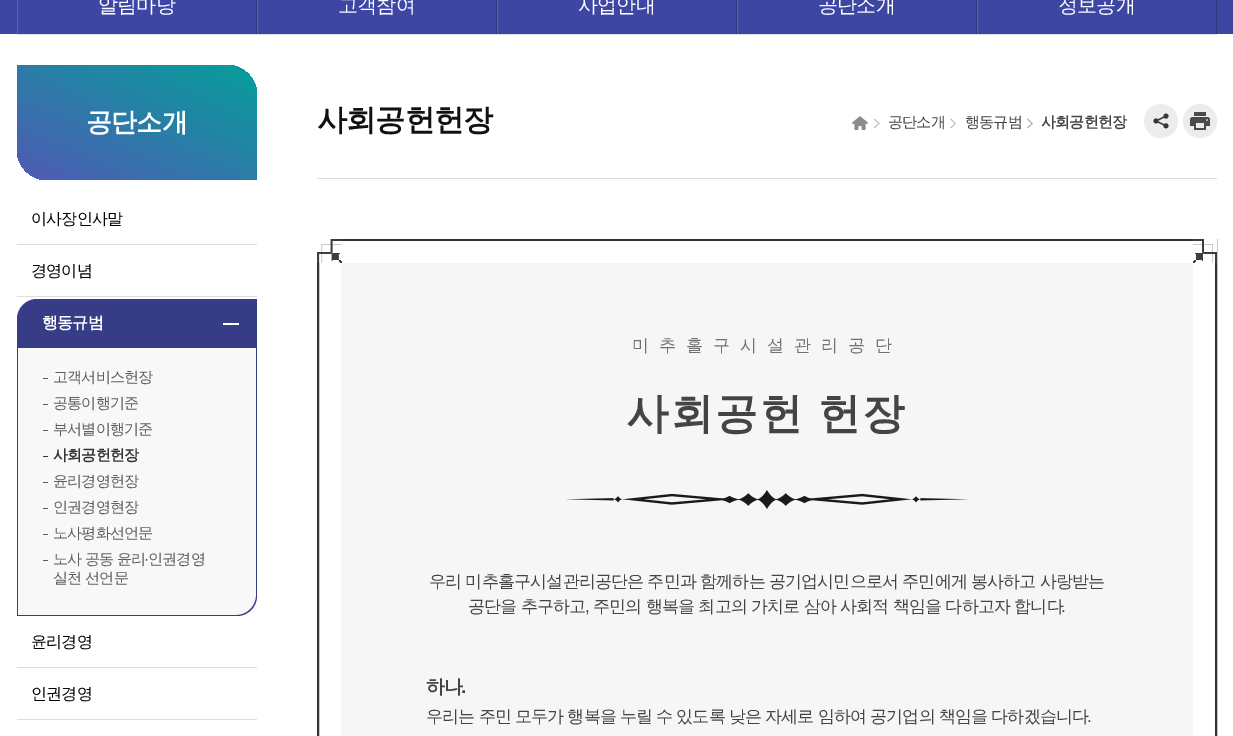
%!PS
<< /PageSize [1233 736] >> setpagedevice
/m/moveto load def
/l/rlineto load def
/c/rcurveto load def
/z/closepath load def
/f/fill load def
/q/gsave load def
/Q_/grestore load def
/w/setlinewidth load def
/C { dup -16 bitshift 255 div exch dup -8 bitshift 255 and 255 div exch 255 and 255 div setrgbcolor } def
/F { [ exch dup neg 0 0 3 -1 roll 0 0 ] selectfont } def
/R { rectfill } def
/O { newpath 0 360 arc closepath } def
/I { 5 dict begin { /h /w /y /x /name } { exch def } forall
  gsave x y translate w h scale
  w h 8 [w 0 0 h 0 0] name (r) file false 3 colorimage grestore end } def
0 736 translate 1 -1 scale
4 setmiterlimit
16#FFFFFF C
0 0 1233 736 R
16#3E46A3 C
0 0 1233 34 R
16#2F357A C
256 0 1 34 R
16#5B62B1 C
17 0 1 34 R
/WenQuanYiZenHei-Medium 20 F
16#FFFFFF C
98 12 m -.8 0 (알림마당) ashow
16#2F357A C
496 0 1 34 R
16#5B62B1 C
257 0 1 34 R
16#FFFFFF C
338 12 m -.8 0 (고객참여) ashow
16#2F357A C
736 0 1 34 R
16#5B62B1 C
497 0 1 34 R
16#FFFFFF C
578 12 m -.8 0 (사업안내) ashow
16#2F357A C
976 0 1 34 R
16#5B62B1 C
737 0 1 34 R
16#FFFFFF C
818 12 m -.8 0 (공단소개) ashow
16#2F357A C
1216 0 1 34 R
16#5B62B1 C
977 0 1 34 R
16#FFFFFF C
1058 12 m -.8 0 (정보공개) ashow
16#DDDDDD C
17 34 1200 1 R
q 17 65 m 210 0 l 16.5 0 30 13.5 30 30 c 0 85 l -210 0 l -16.5 0 -30 -13.5 -30 -30 c z clip newpath
<< /ShadingType 2 /ColorSpace /DeviceRGB /Coords [92 216 182 29] /Extend [true true] /Function << /FunctionType 2 /Domain [0 1] /C0 [.314 .353 .71] /C1 [.024 .624 .608] /N 1 >> >> shfill Q_
/WenQuanYiZenHei-Bold 26 F
16#FFFFFF C
86 131 m -.8 0 (공단소개) ashow
16#DDDDDD C
17 244 240 1 R
/WenQuanYiZenHei-Medium 16 F
16#000000 C
31 224 m -.8 0 (이사장인사말) ashow
16#DDDDDD C
17 296 240 1 R
16#000000 C
31 276 m -.8 0 (경영이념) ashow
16#363D86 C
37 299 m 220 0 l 0 49 l -240 0 l 0 -29 l 0 -11 9 -20 20 -20 c z f
/WenQuanYiZenHei-Bold 16 F
16#FFFFFF C
42 328 m -.8 0 (행동규범) ashow
223 323 16 2 R
16#F8F8F8 C
17 348 m 240 0 l 0 248 l 0 11 -9 20 -20 20 c -220 0 l z f
16#363D86 C
17 348 m 240 0 l 0 248 l 0 11 -9 20 -20 20 c -220 0 l z 18 348 m 238 0 l 0 248 l 0 10 -9 19 -19 19 c -219 0 l z eofill
16#5D5D5D C
43 378 5 1 R
/WenQuanYiZenHei-Medium 15 F
53 382 m -.8 0 (고객서비스헌장) ashow
43 404 5 1 R
53 408 m -.8 0 (공통이행기준) ashow
43 430 5 1 R
53 434 m -.8 0 (부서별이행기준) ashow
16#323232 C
43 456 5 1 R
/WenQuanYiZenHei-Bold 15 F
53 460 m -.8 0 (사회공헌헌장) ashow
16#5D5D5D C
43 482 5 1 R
/WenQuanYiZenHei-Medium 15 F
53 486 m -.8 0 (윤리경영헌장) ashow
43 508 5 1 R
53 512 m -.8 0 (인권경영현장) ashow
43 534 5 1 R
53 538 m -.8 0 (노사평화선언문) ashow
43 560 5 1 R
53 564 m -.8 0 (노사 공동 윤리) ashow
/LiberationSans-Regular 15 F
144 564 m -.8 0 (·) ashow
/WenQuanYiZenHei-Medium 15 F
148 564 m -.8 0 (인권경영) ashow
53 583 m -.8 0 (실천 선언문) ashow
16#DDDDDD C
17 667 240 1 R
/WenQuanYiZenHei-Medium 16 F
16#000000 C
31 647 m -.8 0 (윤리경영) ashow
16#DDDDDD C
17 719 240 1 R
16#000000 C
31 699 m -.8 0 (인권경영) ashow
16#DBDBDB C
317 178 900 1 R
/WenQuanYiZenHei-Bold 30 F
16#111111 C
317 130 m -.8 0 (사회공헌헌장) ashow
(1.rgb) 852 116 16 14 I
16#BBBBBB C
874 119.5 m .5 -1 l 5 5 l -.5 .5 l z f
874 127.5 m 5 -4.5 l .5 .5 l -5 5 l z f
/WenQuanYiZenHei-Medium 15 F
16#444444 C
888 127 m -.8 0 (공단소개) ashow
16#BBBBBB C
950.5 119.5 m .5 -1 l 5 5 l -.5 .5 l z f
950.5 127.5 m 5 -4.5 l .5 .5 l -5 5 l z f
16#444444 C
965 127 m -.8 0 (행동규범) ashow
16#BBBBBB C
1027 119.5 m 1 -1 l 5 5 l -1 .5 l z f
1027 127.5 m 5 -4.5 l 1 .5 l -5 5 l z f
/WenQuanYiZenHei-Bold 15 F
16#444444 C
1041 127 m -.8 0 (사회공헌헌장) ashow
16#ECECEC C
1161 121 17 O f
(2.rgb) 1153 113 16 16 I
1200 121 17 O f
(3.rgb) 1190 112 20 18 I
16#333333 C
2 w
318 240 898 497 rectstroke
(4.rgb) 317 239 900 24 I
16#F6F6F6 C
341 263 852 473 R
/WenQuanYiZenHei-Medium 17 F
16#717171 C
632 351 m 10 0 (미추홀구시설관리공단) ashow
(5.rgb) 566 490 402 19 I
/WenQuanYiZenHei-Bold 42.5 F
16#444444 C
626 428 m -1 0 32 2 0 (사회공헌 헌장) awidthshow
/WenQuanYiZenHei-Medium 17 F
429 587 m -.4 0 32 -.8 0 (우리 미추홀구시설관리공단은 주민과 함께하는 공기업시민으로서 주민에게 봉사하고 사랑받는) awidthshow
468 612 m -.25 0 32 -.8 0 (공단을 추구하고) awidthshow
/LiberationSans-Regular 17 F
585 612 m -.8 0 (,) ashow
/WenQuanYiZenHei-Medium 17 F
593 612 m -.25 0 32 -.8 0 (주민의 행복을 최고의 가치로 삼아 사회적 책임을 다하고자 합니다) awidthshow
/LiberationSans-Regular 17 F
1061 612 m -.8 0 (.) ashow
/WenQuanYiZenHei-Bold 19 F
426 693 m -.8 0 (하나) ashow
/LiberationSans-Bold 19 F
461 693 m -.8 0 (.) ashow
/WenQuanYiZenHei-Medium 17 F
426 722 m -.4 0 32 -.8 0 (우리는 주민 모두가 행복을 누릴 수 있도록 낮은 자세로 임하여 공기업의 책임을 다하겠습니다) awidthshow
/LiberationSans-Regular 17 F
1087 722 m -.8 0 (.) ashow
showpage
